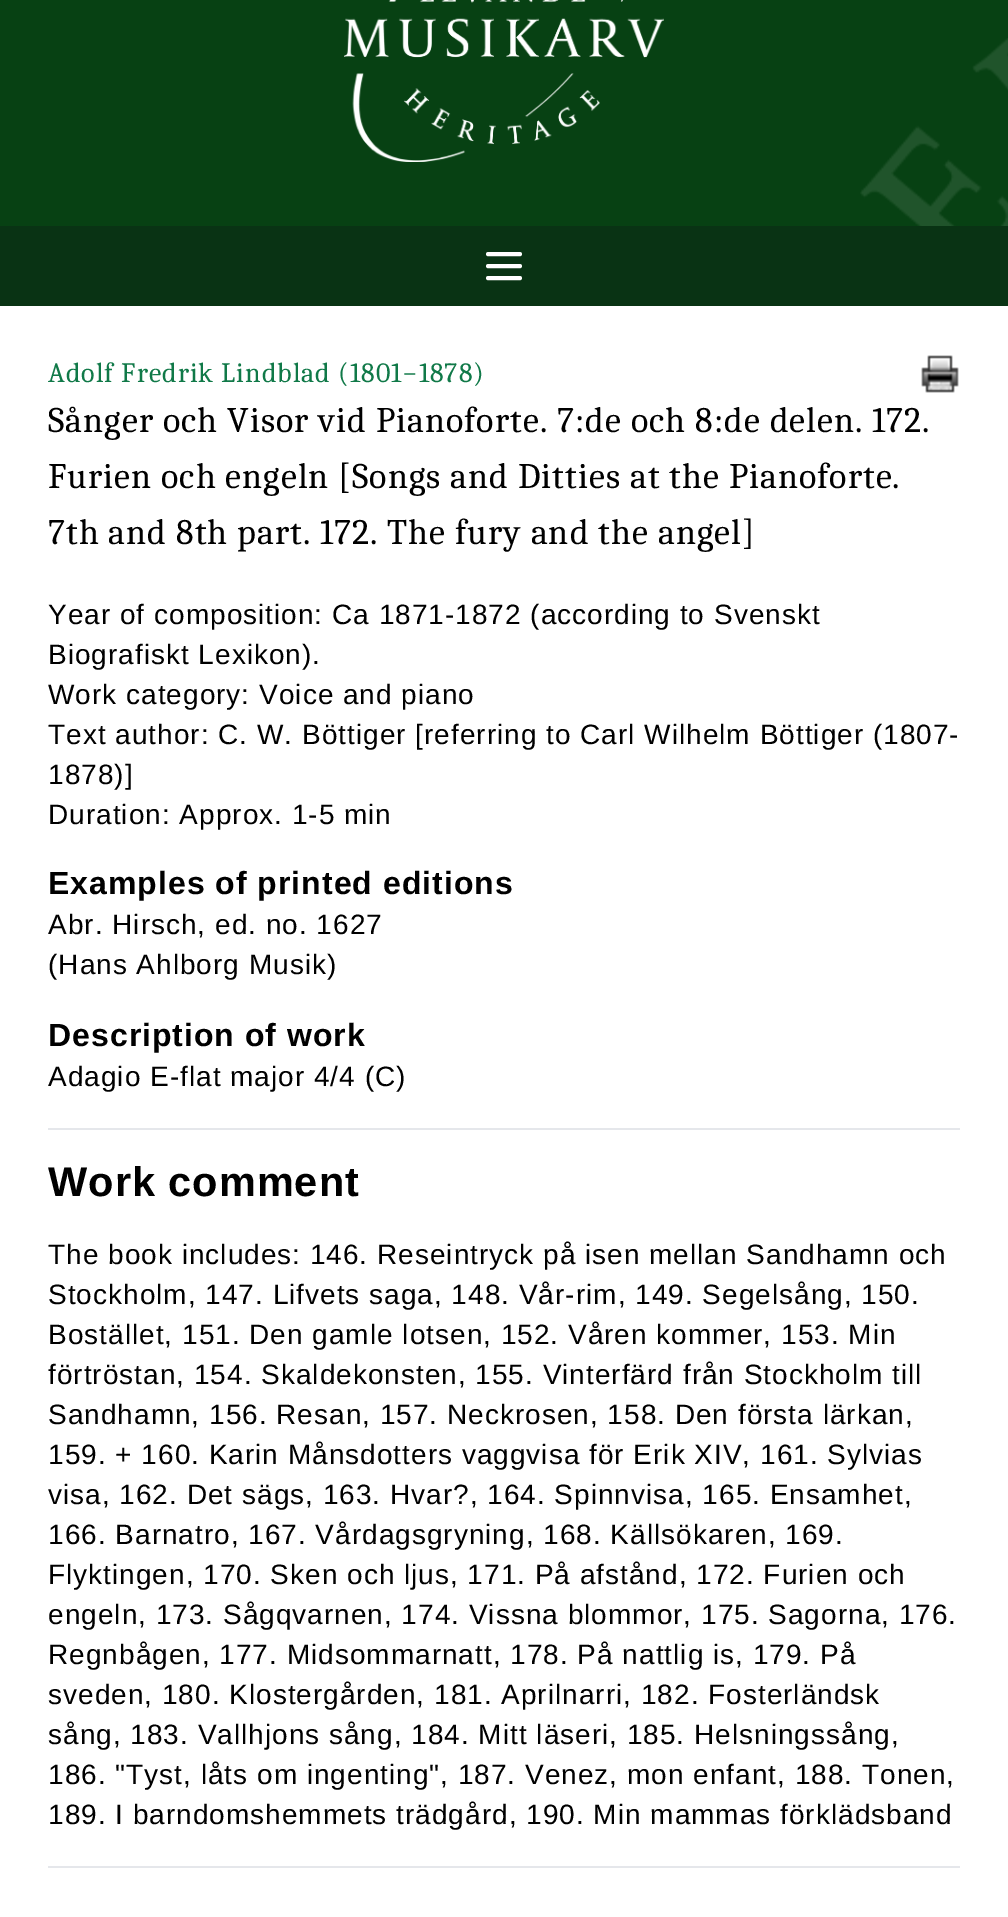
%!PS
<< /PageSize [1008 1917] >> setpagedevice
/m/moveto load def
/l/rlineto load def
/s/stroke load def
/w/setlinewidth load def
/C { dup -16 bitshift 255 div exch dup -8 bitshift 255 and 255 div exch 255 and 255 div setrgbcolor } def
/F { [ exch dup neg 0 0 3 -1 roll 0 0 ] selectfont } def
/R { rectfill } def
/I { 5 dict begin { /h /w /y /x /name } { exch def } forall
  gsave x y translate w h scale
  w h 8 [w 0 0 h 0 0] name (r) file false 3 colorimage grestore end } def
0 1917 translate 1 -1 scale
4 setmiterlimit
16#074113 C
0 0 1008 1917 R
(1.rgb) 344 0 320 162 I
16#093314 C
0 226 1008 80 R
16#FFFFFF C
4 w
1 setlinecap
1 setlinejoin
488 254 m 32 0 l 488 266 m 32 0 l 488 278 m 32 0 l s
(2.rgb) 860 38 148 188 I
0 306 1008 1611 R
/Caladea-Regular 28 F
16#107948 C
48 382 m 1 0 (Adolf Fredrik Lindblad \(1801−1878\)) ashow
(3.rgb) 921 355 38 38 I
/Caladea-Regular 36 F
16#000000 C
48 432 m 1 0 (Sånger och Visor vid Pianoforte. 7:de och 8:de delen. 172.) ashow
48 488 m 1 0 (Furien och engeln [Songs and Ditties at the Pianoforte.) ashow
48 544 m 1 0 (7th and 8th part. 172. The fury and the angel]) ashow
/LiberationSans-Regular 28 F
48 624 m 1 0 (Year of composition: Ca 1871-1872 \(according to Svenskt) ashow
48 664 m 1 0 (Biografiskt Lexikon\).) ashow
48 704 m 1 0 (Work category: Voice and piano) ashow
48 744 m 1 0 (Text author: C. W. Böttiger [referring to Carl Wilhelm Böttiger \(1807-) ashow
48 784 m 1 0 (1878\)]) ashow
48 824 m 1 0 (Duration: Approx. 1-5 min) ashow
/LiberationSans-Bold 32 F
48 894 m 1 0 (Examples of printed editions) ashow
/LiberationSans-Regular 28 F
48 934 m 1 0 (Abr. Hirsch, ed. no. 1627) ashow
48 974 m 1 0 (\(Hans Ahlborg Musik\)) ashow
/LiberationSans-Bold 32 F
48 1046 m 1 0 (Description of work) ashow
/LiberationSans-Regular 28 F
48 1086 m 1 0 (Adagio E-flat major 4/4 \(C\)) ashow
16#E5E7EB C
48 1128 912 2 R
/LiberationSans-Bold 41.5 F
16#000000 C
48 1196 m 1 0 (Work comment) ashow
/LiberationSans-Regular 28 F
48 1264 m 1 0 (The book includes: 146. Reseintryck på isen mellan Sandhamn och) ashow
48 1304 m 1 0 (Stockholm, 147. Lifvets saga, 148. Vår-rim, 149. Segelsång, 150.) ashow
48 1344 m 1 0 (Bostället, 151. Den gamle lotsen, 152. Våren kommer, 153. Min) ashow
48 1384 m 1 0 (förtröstan, 154. Skaldekonsten, 155. Vinterfärd från Stockholm till) ashow
48 1424 m 1 0 (Sandhamn, 156. Resan, 157. Neckrosen, 158. Den första lärkan,) ashow
48 1464 m 1 0 (159. + 160. Karin Månsdotters vaggvisa för Erik XIV, 161. Sylvias) ashow
48 1504 m 1 0 (visa, 162. Det sägs, 163. Hvar?, 164. Spinnvisa, 165. Ensamhet,) ashow
48 1544 m 1 0 (166. Barnatro, 167. Vårdagsgryning, 168. Källsökaren, 169.) ashow
48 1584 m 1 0 (Flyktingen, 170. Sken och ljus, 171. På afstånd, 172. Furien och) ashow
48 1624 m 1 0 (engeln, 173. Sågqvarnen, 174. Vissna blommor, 175. Sagorna, 176.) ashow
48 1664 m 1 0 (Regnbågen, 177. Midsommarnatt, 178. På nattlig is, 179. På) ashow
48 1704 m 1 0 (sveden, 180. Klostergården, 181. Aprilnarri, 182. Fosterländsk) ashow
48 1744 m 1 0 (sång, 183. Vallhjons sång, 184. Mitt läseri, 185. Helsningssång,) ashow
48 1784 m 1 0 (186. "Tyst, låts om ingenting", 187. Venez, mon enfant, 188. Tonen,) ashow
48 1824 m 1 0 (189. I barndomshemmets trädgård, 190. Min mammas förklädsband) ashow
16#E5E7EB C
48 1866 912 2 R
showpage
